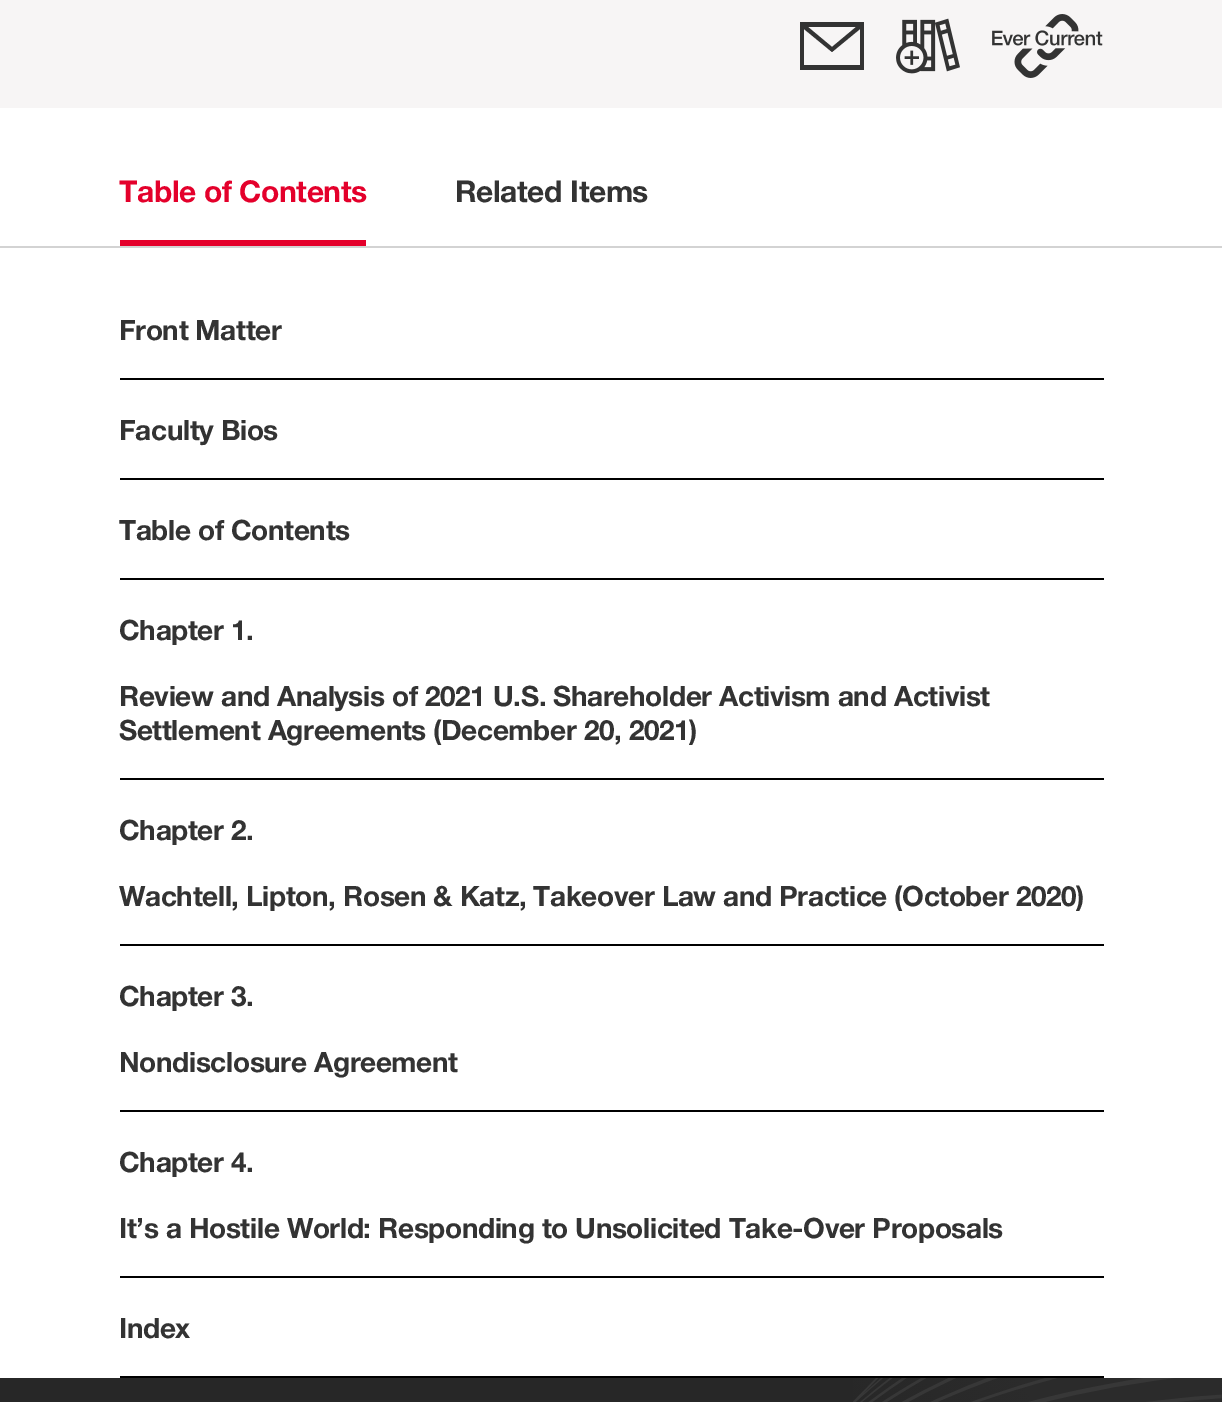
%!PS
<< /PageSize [1222 1402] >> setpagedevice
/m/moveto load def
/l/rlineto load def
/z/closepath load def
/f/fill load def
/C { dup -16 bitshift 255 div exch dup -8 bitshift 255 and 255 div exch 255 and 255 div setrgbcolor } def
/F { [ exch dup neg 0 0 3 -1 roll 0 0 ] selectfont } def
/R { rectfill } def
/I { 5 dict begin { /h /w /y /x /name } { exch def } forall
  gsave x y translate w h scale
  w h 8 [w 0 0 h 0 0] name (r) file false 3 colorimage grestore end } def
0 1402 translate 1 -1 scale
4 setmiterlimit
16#FFFFFF C
0 0 1222 1402 R
16#F7F5F5 C
0 0 1222 108 R
16#333333 C
800 22 m 0 48 l 0 -48 l 0 48 l 64 0 l 0 -48 l z 856 27 m -24 20 l 24 -20 l -24 20 l -24 -20 l z 804 65 m 0 -36 l 0 36 l 0 -36 l 28 23 l 28 -23 l 0 36 l z f
(1.rgb) 896 18 64 56 I
(2.rgb) 992 14 111 64 I
16#D3D3D3 C
0 246 1222 2 R
/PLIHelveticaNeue-Bold 30 F
16#E4002B C
119 202 m -.4 0 (Table of Contents) ashow
120 240 246 6 R
16#333333 C
455 202 m -.4 0 (Related Items) ashow
16#000000 C
120 378 984 2 R
/PLIHelveticaNeue-Bold 28 F
16#333333 C
119 340 m -.4 0 (Front Matter) ashow
16#000000 C
120 478 984 2 R
16#333333 C
119 440 m -.4 0 (Faculty Bios) ashow
16#000000 C
120 578 984 2 R
16#333333 C
119 540 m -.4 0 (Table of Contents) ashow
16#000000 C
120 778 984 2 R
16#333333 C
119 640 m -.4 0 (Chapter 1.) ashow
119 706 m -.4 0 (Review and Analysis of 2021 U.S. Shareholder Activism and Activist) ashow
119 740 m -.4 0 (Settlement Agreements \(December 20, 2021\)) ashow
16#000000 C
120 944 984 2 R
16#333333 C
119 840 m -.4 0 (Chapter 2.) ashow
119 906 m -.4 0 (Wachtell, Lipton, Rosen & Katz, Takeover Law and Practice \(October 2020\)) ashow
16#000000 C
120 1110 984 2 R
16#333333 C
119 1006 m -.4 0 (Chapter 3.) ashow
119 1072 m -.4 0 (Nondisclosure Agreement) ashow
16#000000 C
120 1276 984 2 R
16#333333 C
119 1172 m -.4 0 (Chapter 4.) ashow
119 1238 m -.4 0 (It’s a Hostile World: Responding to Unsolicited Take-Over Proposals) ashow
16#000000 C
120 1376 984 2 R
16#333333 C
119 1338 m -.4 0 (Index) ashow
16#272727 C
0 1378 1222 24 R
(3.rgb) 853 1378 369 24 I
showpage
